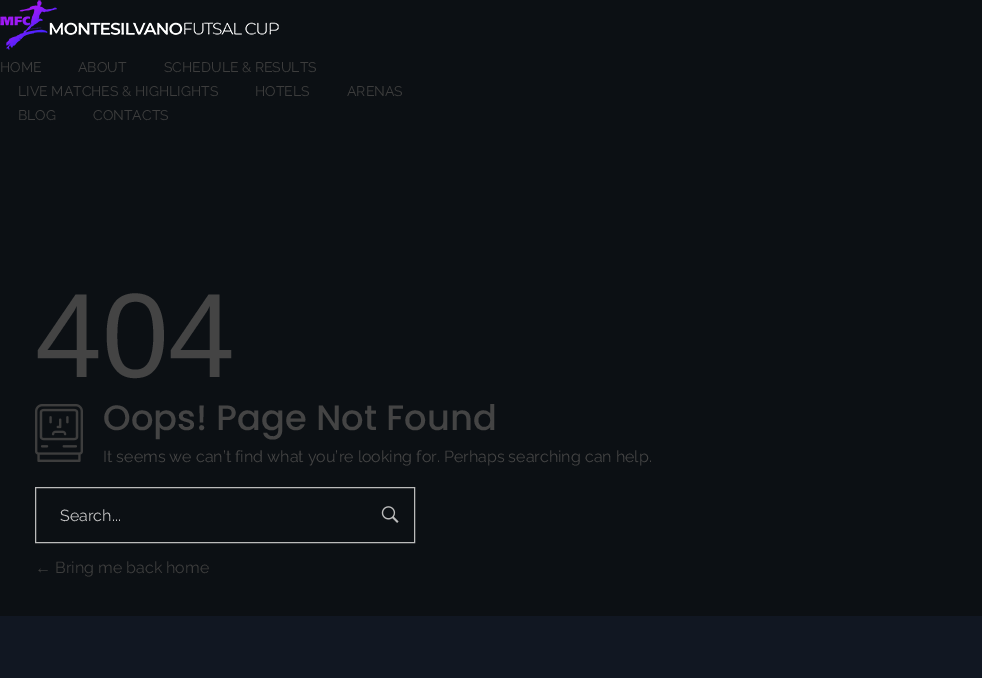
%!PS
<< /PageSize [982 678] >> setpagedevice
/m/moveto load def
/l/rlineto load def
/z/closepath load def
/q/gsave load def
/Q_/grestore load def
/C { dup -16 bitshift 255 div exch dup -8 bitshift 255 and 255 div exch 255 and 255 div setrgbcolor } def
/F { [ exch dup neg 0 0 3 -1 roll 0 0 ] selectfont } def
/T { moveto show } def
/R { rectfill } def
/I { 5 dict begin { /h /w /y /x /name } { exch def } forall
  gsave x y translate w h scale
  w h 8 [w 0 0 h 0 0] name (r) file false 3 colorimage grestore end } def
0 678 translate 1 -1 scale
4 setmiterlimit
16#0C1014 C
0 0 982 678 R
(1.rgb) 0 0 279 50 I
/Raleway-Regular 14 F
16#3D3D3D C
(HOME) 0 72 T
(ABOUT) 78 72 T
(SCHEDULE & RESULTS) 164 72 T
(LIVE MATCHES & HIGHLIGHTS) 18 96 T
(HOTELS) 255 96 T
(ARENAS) 347 96 T
(BLOG) 18 120 T
(CONTACTS) 93 120 T
/LiberationSans-Regular 120 F
16#444444 C
(404) 35 377 T
(2.rgb) 35 404 48 58 I
/Poppins-Medium 35.25 F
(Oops! Page Not Found) 103 430 T
/Raleway-Regular 16 F
(It seems we can’t find what you’re looking for. Perhaps searching can help.) 103 462 T
16#BBBBBB C
35.5 487.5 379 55 rectstroke
16#C5C5C5 C
(Search...) 60 521 T
(3.rgb) 381 506 18 17 I
/LiberationSans-Regular 16 F
16#3D3D3D C
(←) 35 573 T
/Raleway-Regular 16 F
(Bring me back home) 55 573 T
q 0 616 m 982 0 l 0 62 l -982 0 l z clip newpath
<< /ShadingType 2 /ColorSpace /DeviceRGB /Coords [491 616 491 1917] /Extend [true true] /Function << /FunctionType 3 /Domain [0 1] /Functions [<< /FunctionType 2 /Domain [0 1] /C0 [.067 .094 .137] /C1 [.047 .063 .078] /N 1 >> << /FunctionType 2 /Domain [0 1] /C0 [.047 .063 .078] /C1 [.047 .063 .078] /N 1 >>] /Bounds [.53] /Encode [0 1 0 1] >> >> shfill Q_
showpage
